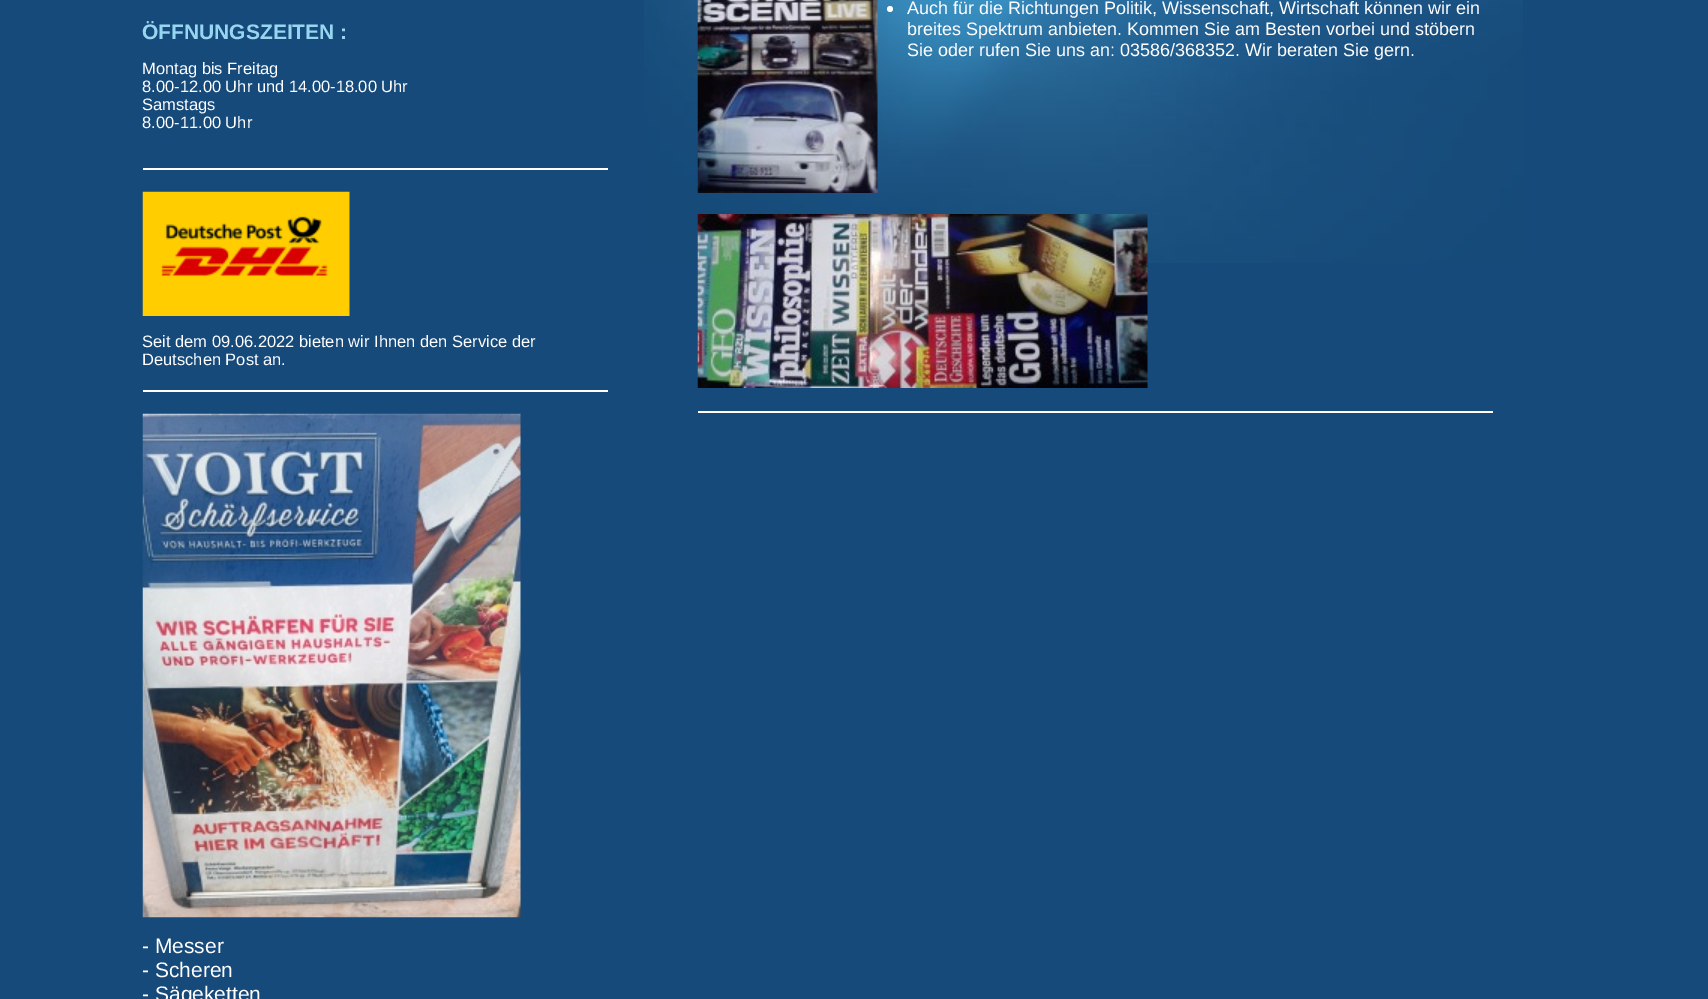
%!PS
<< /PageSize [1708 999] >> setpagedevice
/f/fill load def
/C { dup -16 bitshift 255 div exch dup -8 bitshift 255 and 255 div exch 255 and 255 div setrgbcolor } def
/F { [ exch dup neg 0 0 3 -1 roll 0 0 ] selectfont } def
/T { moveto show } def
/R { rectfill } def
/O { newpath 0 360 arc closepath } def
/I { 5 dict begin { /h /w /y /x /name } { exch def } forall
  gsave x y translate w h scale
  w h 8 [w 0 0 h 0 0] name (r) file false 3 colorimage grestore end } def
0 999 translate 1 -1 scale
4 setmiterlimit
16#164A7A C
0 0 1708 999 R
(1.rgb) 644 0 879 263 I
/LiberationSans-Bold 21 F
16#97D6F1 C
(ÖFFNUNGSZEITEN :) 142 39 T
/LiberationSans-Regular 16.5 F
16#FFFFFF C
(Montag bis Freitag) 142 74 T
(8.00-12.00 Uhr und 14.00-18.00 Uhr) 142 92 T
(Samstags) 142 110 T
(8.00-11.00 Uhr) 142 128 T
143 168 465 2 R
(2.rgb) 142 191 208 125 I
(Seit dem 09.06.2022 bieten wir Ihnen den Service der) 142 347 T
(Deutschen Post an.) 142 365 T
143 390 465 2 R
(3.rgb) 142 413 379 505 I
/LiberationSans-Regular 21 F
(- Messer) 142 953 T
(- Scheren) 142 977 T
(- Sägeketten) 142 1001 T
(4.rgb) 697 0 181 193 I
890 9 3 O f
/LiberationSans-Regular 18 F
(Auch für die Richtungen Politik, Wissenschaft, Wirtschaft können wir ein) 907 14 T
(breites Spektrum anbieten. Kommen Sie am Besten vorbei und stöbern) 907 35 T
(Sie oder rufen Sie uns an: 03586/368352. Wir beraten Sie gern.) 907 56 T
(5.rgb) 697 214 451 174 I
698 411 795 2 R
showpage
